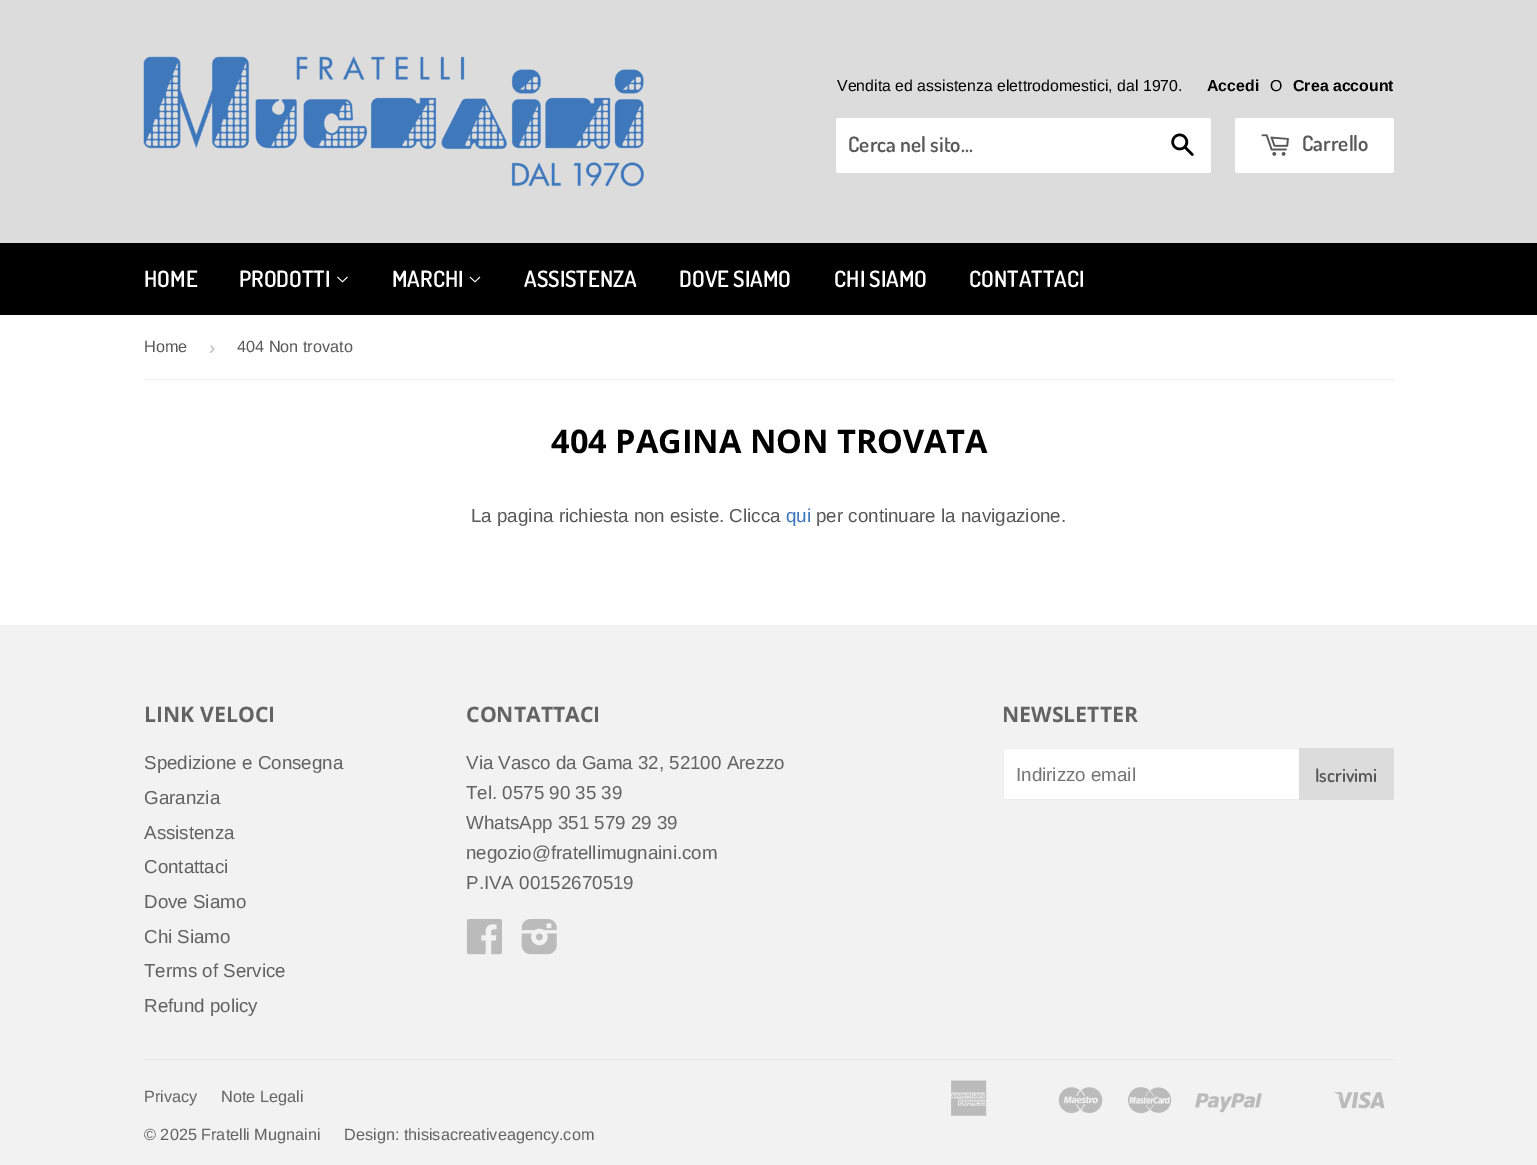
%!PS
<< /PageSize [1537 1165] >> setpagedevice
/m/moveto load def
/l/rlineto load def
/c/rcurveto load def
/z/closepath load def
/f/fill load def
/C { dup -16 bitshift 255 div exch dup -8 bitshift 255 and 255 div exch 255 and 255 div setrgbcolor } def
/F { [ exch dup neg 0 0 3 -1 roll 0 0 ] selectfont } def
/T { moveto show } def
/R { rectfill } def
/Q { 5 dict begin { /r /h /w /y /x } { exch def } forall
  x r add y moveto x w add y 2 copy h add r arct x w add y h add x 1 index r arct
  x y h add x y r arct x y 2 copy exch w add exch r arct closepath end } def
/I { 5 dict begin { /h /w /y /x /name } { exch def } forall
  gsave x y translate w h scale
  w h 8 [w 0 0 h 0 0] name (r) file false 3 colorimage grestore end } def
0 1165 translate 1 -1 scale
4 setmiterlimit
16#FFFFFF C
0 0 1537 1165 R
16#DCDCDC C
0 0 1537 243 R
(1.rgb) 143 56 501 131 I
/LiberationSans-Regular 15.9 F
16#000000 C
(Vendita ed assistenza elettrodomestici, dal 1970.) 837 91 T
/LiberationSans-Bold 15.9 F
(Accedi) 1207 91 T
/LiberationSans-Regular 15.9 F
(O) 1270 91 T
/LiberationSans-Bold 15.9 F
(Crea account) 1293 91 T
16#FFFFFF C
836 118 375 55 2.5 Q f
/Dosis-SemiBold 21.25 F
16#585858 C
(Cerca nel sito...) 848 152 T
(2.rgb) 1171 133 23 23 I
16#FFFFFF C
1235 118 159 55 2.5 Q f
(3.rgb) 1261 134 28 22 I
16#585858 C
(Carrello) 1302 151 T
16#000000 C
0 243 1537 72 R
/Dosis-SemiBold 22.5 F
16#FFFFFF C
(HOME) 144 287 T
(PRODOTTI) 239 287 T
(4.rgb) 337 276 11 7 I
(MARCHI) 392 287 T
(5.rgb) 469 276 12 7 I
(ASSISTENZA) 524 287 T
(DOVE SIAMO) 679 287 T
(CHI SIAMO) 834 287 T
(CONTATTACI) 969 287 T
16#ECECEC C
144 379 1250 1 R
/LiberationSans-Regular 16.25 F
16#585858 C
(Home) 144 352 T
/LiberationSans-Regular 18.75 F
16#BBBBBB C
(›) 209 354 T
/LiberationSans-Regular 16.25 F
16#585858 C
(404 Non trovato) 237 352 T
/OpenSans-Bold 32.5 F
16#000000 C
(404 PAGINA NON TROVATA) 551 453 T
/LiberationSans-Regular 18.75 F
16#585858 C
(La pagina richiesta non esiste. Clicca) 471 522 T
16#3E78BC C
(qui) 786 522 T
16#585858 C
(per continuare la navigazione.) 816 522 T
16#F2F2F2 C
0 625 1537 540 R
/OpenSans-Bold 21.25 F
16#636363 C
(LINK VELOCI) 144 722 T
/LiberationSans-Regular 18.75 F
(Spedizione e Consegna) 144 769 T
(Garanzia) 144 804 T
(Assistenza) 144 839 T
(Contattaci) 144 873 T
(Dove Siamo) 144 908 T
(Chi Siamo) 144 943 T
(Terms of Service) 144 977 T
(Refund policy) 144 1012 T
/OpenSans-Bold 21.25 F
(CONTATTACI) 466 722 T
/LiberationSans-Regular 18.75 F
(Via Vasco da Gama 32, 52100 Arezzo) 466 769 T
(Tel. 0575 90 35 39) 466 799 T
(WhatsApp 351 579 29 39) 466 829 T
(negozio@fratellimugnaini.com) 466 859 T
(P.IVA 00152670519) 466 889 T
(6.rgb) 466 919 36 36 I
(7.rgb) 521 919 36 36 I
/OpenSans-Bold 21.25 F
(NEWSLETTER) 1002 722 T
16#FFFFFF C
1005.5 748 m 293.5 0 l 0 52 l -293.5 0 l -1.5 0 -2.5 -1 -2.5 -2.5 c 0 -47 l 0 -1.5 1 -2.5 2.5 -2.5 c z f
16#ECECEC C
1004 748 295 1 R
1004 799 295 1 R
1003 749 1 50 R
/LiberationSans-Regular 18.75 F
16#757575 C
(Indirizzo email) 1016 781 T
16#DCDCDC C
1299 748 m 92.5 0 l 1.5 0 2.5 1 2.5 2.5 c 0 47 l 0 1.5 -1 2.5 -2.5 2.5 c -92.5 0 l z f
/Dosis-SemiBold 18.75 F
16#585858 C
(Iscrivimi) 1315 782 T
16#E5E5E5 C
144 1059 1250 1 R
/LiberationSans-Regular 16.25 F
16#636363 C
(Privacy) 144 1102 T
(Note Legali) 221 1102 T
(© 2025 Fratelli Mugnaini) 144 1140 T
(Design: thisisacreativeagency.com) 344 1140 T
(8.rgb) 951 1080 36 36 I
(9.rgb) 1058 1087 45 26 I
(10.rgb) 1128 1087 44 27 I
(11.rgb) 1195 1093 67 20 I
(12.rgb) 1333 1092 52 17 I
showpage
